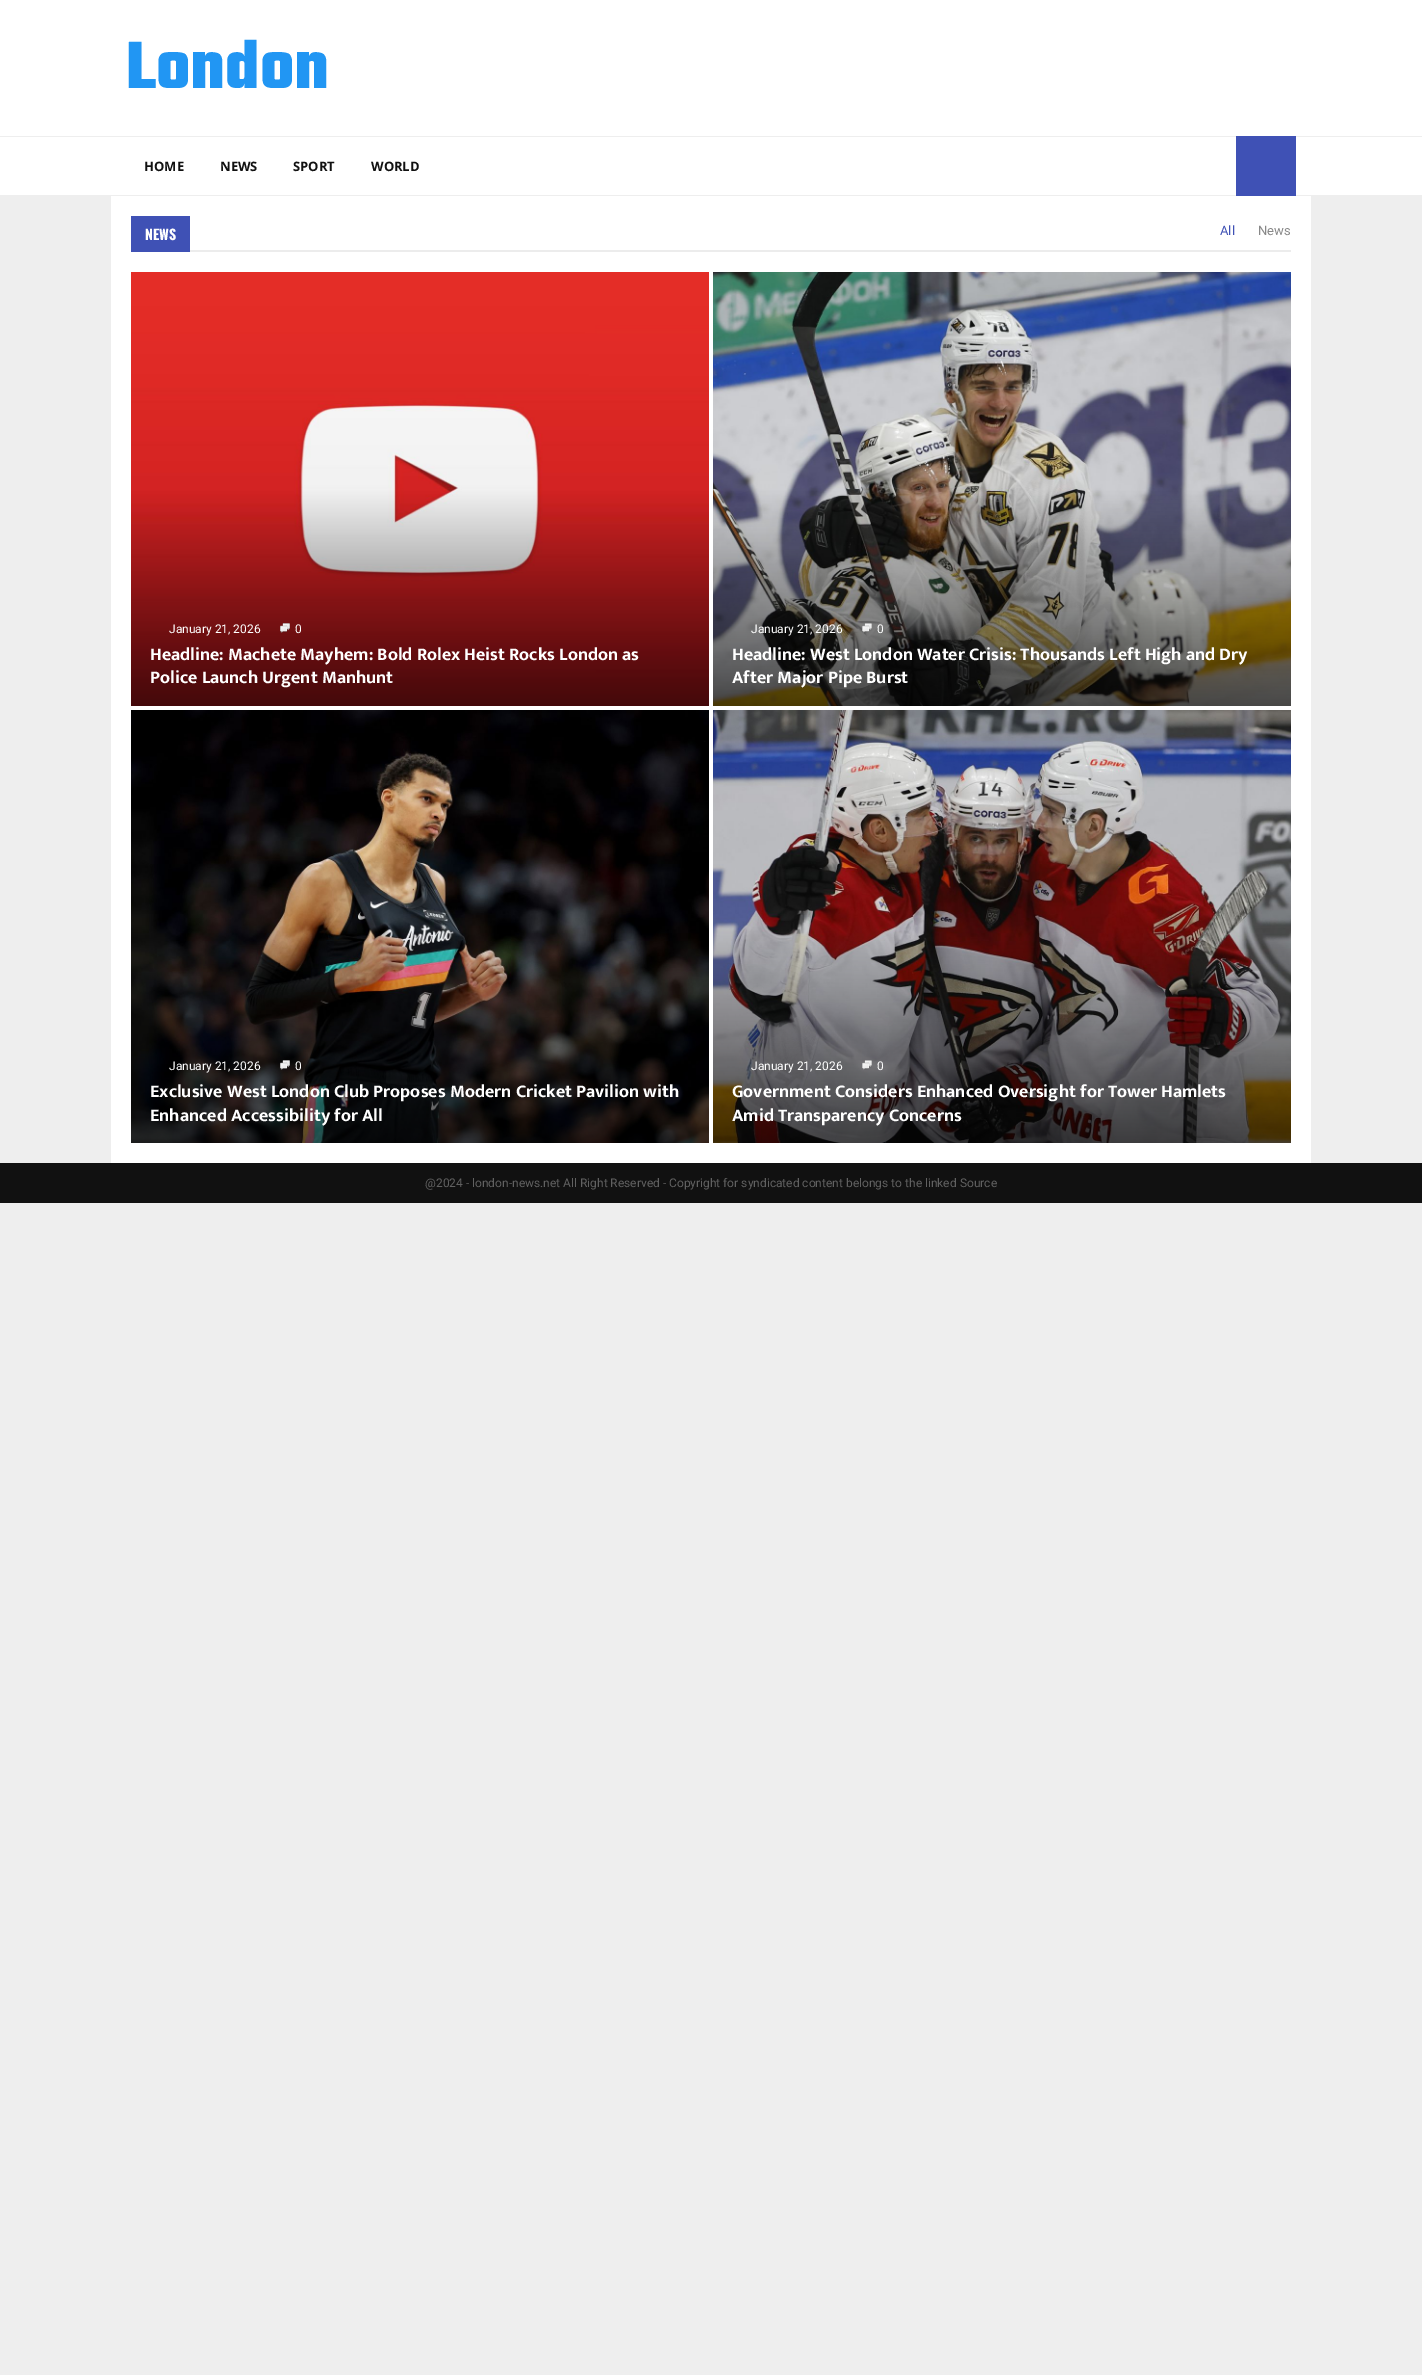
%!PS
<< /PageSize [1422 2375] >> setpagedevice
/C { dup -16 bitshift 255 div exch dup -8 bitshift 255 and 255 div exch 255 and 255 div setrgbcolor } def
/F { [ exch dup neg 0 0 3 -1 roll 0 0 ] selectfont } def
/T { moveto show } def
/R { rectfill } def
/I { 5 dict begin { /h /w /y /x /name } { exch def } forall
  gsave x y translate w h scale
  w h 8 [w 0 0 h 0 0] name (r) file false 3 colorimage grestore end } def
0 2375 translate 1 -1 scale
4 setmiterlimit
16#EEEEEE C
0 0 1422 2375 R
16#FFFFFF C
0 0 1422 136 R
/Teko-Bold 72 F
16#2196F3 C
(London) 126 88 T
16#FFFFFF C
0 137 1422 58 R
/OpenSans-Bold 13 F
16#111111 C
(HOME) 144 171 T
(NEWS) 220 171 T
(SPORT) 293 171 T
(WORLD) 371 171 T
16#3F51B5 C
1236 136 60 60 R
16#FFFFFF C
111 196 1200 967 R
16#ECECEC C
190 250 1101 2 R
16#3F51B5 C
131 216 59 36 R
/Oswald-Bold 14 F
16#FFFFFF C
(NEWS) 145 240 T
/Roboto-Regular 13 F
16#3F51B5 C
(All) 1220 235 T
16#888888 C
(News) 1258 235 T
(1.rgb) 131 272 578 434 I
/Roboto-Regular 12 F
16#FFFFFF C
(January 21, 2026) 169 633 T
(2.rgb) 280 623 10 10 I
(0) 295 633 T
/MuktaVaani-Bold 18 F
(Headline: Machete Mayhem: Bold Rolex Heist Rocks London as) 150 660 T
(Police Launch Urgent Manhunt) 150 683 T
(3.rgb) 713 272 578 434 I
/Roboto-Regular 12 F
(January 21, 2026) 751 633 T
(4.rgb) 862 623 10 10 I
(0) 877 633 T
/MuktaVaani-Bold 18 F
(Headline: West London Water Crisis: Thousands Left High and Dry) 732 660 T
(After Major Pipe Burst) 732 683 T
(5.rgb) 131 710 578 433 I
/Roboto-Regular 12 F
(January 21, 2026) 169 1070 T
(6.rgb) 280 1060 10 10 I
(0) 295 1070 T
/MuktaVaani-Bold 18 F
(Exclusive West London Club Proposes Modern Cricket Pavilion with) 150 1097 T
(Enhanced Accessibility for All) 150 1121 T
(7.rgb) 713 710 578 433 I
/Roboto-Regular 12 F
(January 21, 2026) 751 1070 T
(8.rgb) 862 1060 10 10 I
(0) 877 1070 T
/MuktaVaani-Bold 18 F
(Government Considers Enhanced Oversight for Tower Hamlets) 732 1097 T
(Amid Transparency Concerns) 732 1121 T
16#111111 C
0 1163 1422 40 R
/Roboto-Regular 12 F
16#616161 C
(@2024 - london-news.net All Right Reserved - Copyright for syndicated content belongs to the linked Source) 425 1187 T
showpage
